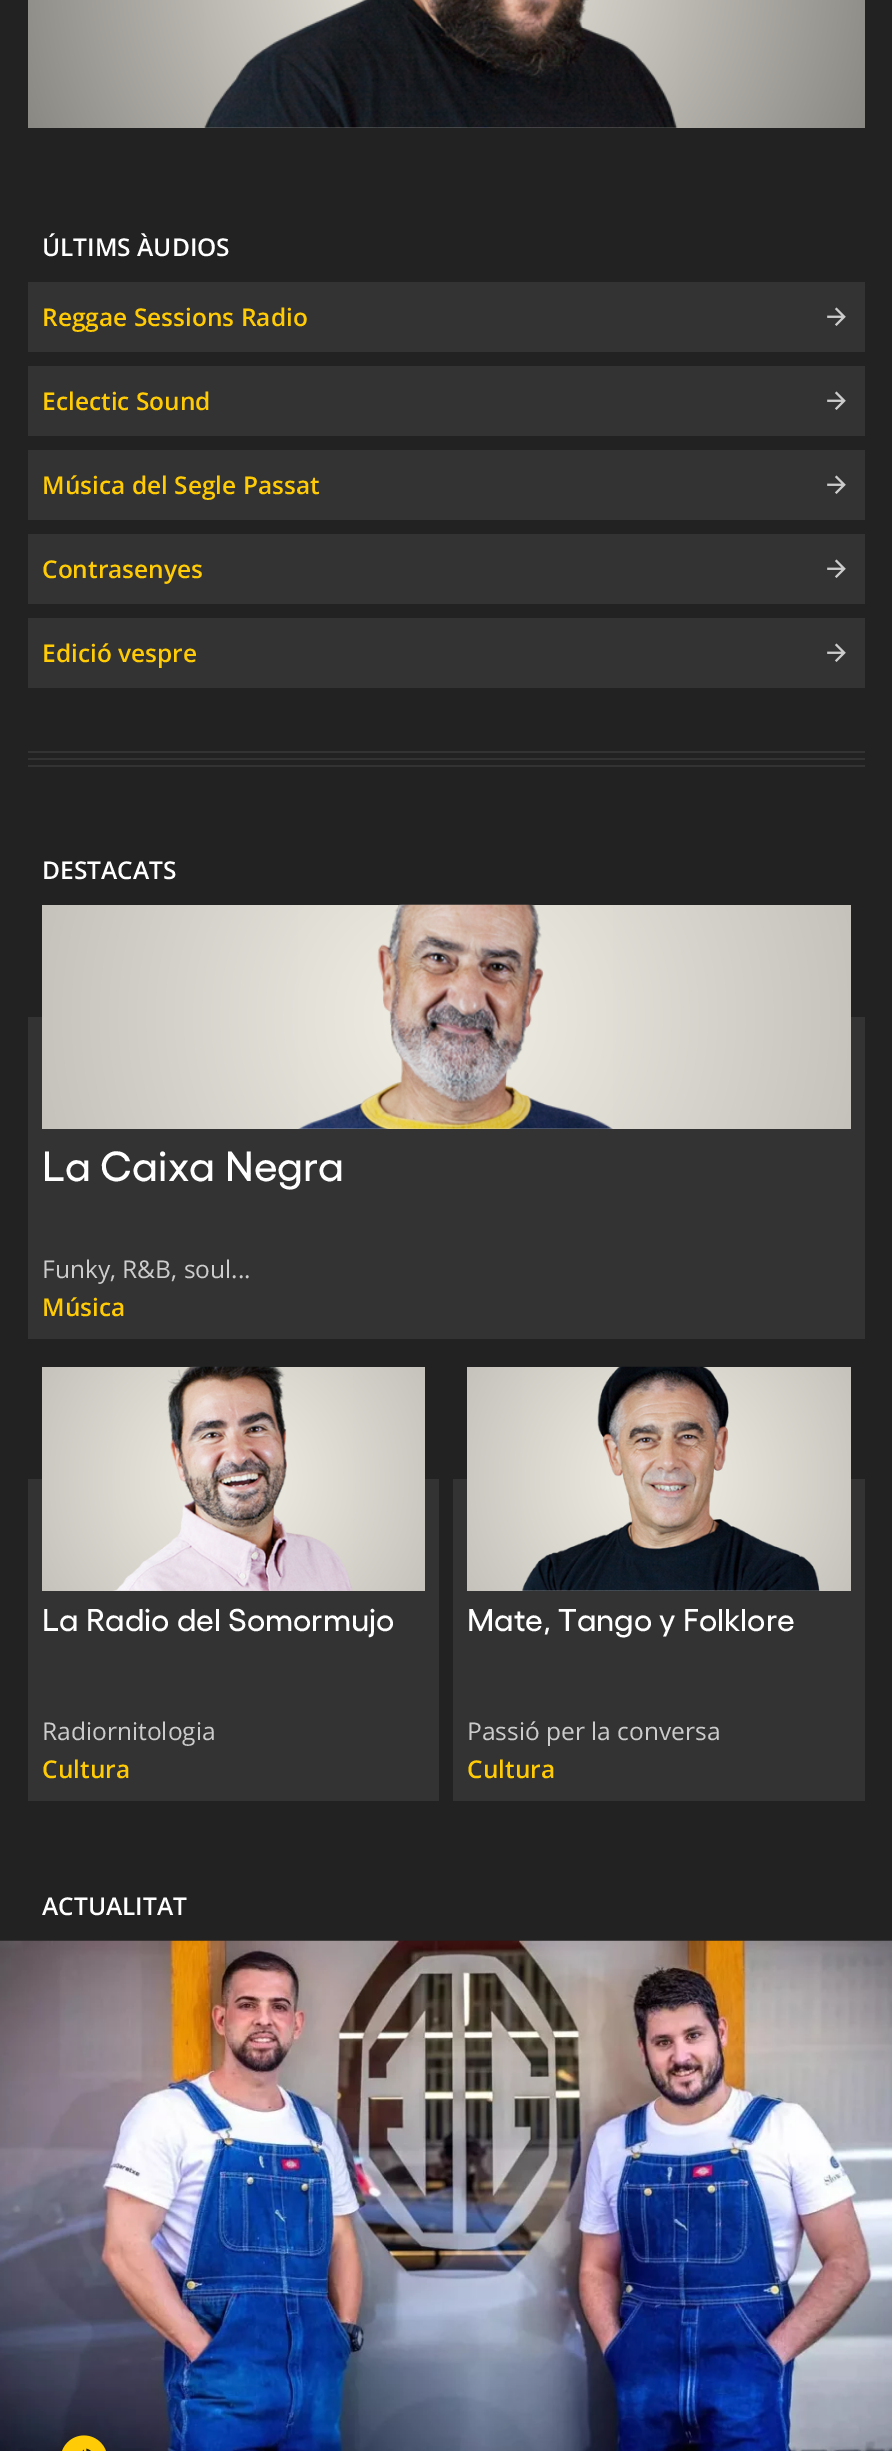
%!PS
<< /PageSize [892 2451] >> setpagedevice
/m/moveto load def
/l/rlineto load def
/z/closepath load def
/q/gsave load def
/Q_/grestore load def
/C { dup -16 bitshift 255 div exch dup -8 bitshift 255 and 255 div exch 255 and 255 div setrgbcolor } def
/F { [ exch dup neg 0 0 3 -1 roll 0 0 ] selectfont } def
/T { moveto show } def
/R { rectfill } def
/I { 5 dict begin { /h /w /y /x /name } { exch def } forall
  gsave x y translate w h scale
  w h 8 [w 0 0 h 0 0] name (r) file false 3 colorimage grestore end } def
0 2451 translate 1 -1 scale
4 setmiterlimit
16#222222 C
0 0 892 2451 R
q 28 0 m 837 0 l 0 128 l -837 0 l z clip newpath 446 -40 translate 496 496 scale
<< /ShadingType 3 /ColorSpace /DeviceRGB /Coords [0 0 0 0 0 1] /Extend [true true] /Function << /FunctionType 2 /Domain [0 1] /C0 [.949 .941 .902] /C1 [.502 .494 .475] /N 1 >> >> shfill Q_
(1.rgb) 204 0 474 128 I
/OpenSans-SemiBold 24.5 F
16#FFFFFF C
(ÚLTIMS ÀUDIOS) 42 256 T
16#333333 C
28 282 837 70 R
16#FFCB06 C
(Reggae Sessions Radio) 42 326 T
(2.rgb) 827 307 19 19 I
16#333333 C
28 366 837 70 R
16#FFCB06 C
(Eclectic Sound) 42 410 T
(2.rgb) 827 391 19 19 I
16#333333 C
28 450 837 70 R
16#FFCB06 C
(Música del Segle Passat) 42 494 T
(2.rgb) 827 475 19 19 I
16#333333 C
28 534 837 70 R
16#FFCB06 C
(Contrasenyes) 42 578 T
(2.rgb) 827 559 19 19 I
16#333333 C
28 618 837 70 R
16#FFCB06 C
(Edició vespre) 42 662 T
(2.rgb) 827 643 19 19 I
16#333333 C
28 751 837 2 R
28 758 837 2 R
28 765 837 2 R
16#FFFFFF C
(DESTACATS) 42 879 T
16#333333 C
28 1017 837 322 R
q 42 905 m 809 0 l 0 224 l -809 0 l z clip newpath 446 1017 translate 1049 1049 scale
<< /ShadingType 3 /ColorSpace /DeviceRGB /Coords [0 0 0 0 0 1] /Extend [true true] /Function << /FunctionType 2 /Domain [0 1] /C0 [.949 .941 .902] /C1 [.502 .494 .475] /N 1 >> >> shfill Q_
(3.rgb) 298 904 315 225 I
/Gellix-Medium 42 F
16#FFFFFF C
(La Caixa Negra) 42 1181 T
/OpenSans-Regular 24.5 F
16#CCCCCC C
(Funky, R&B, soul...) 42 1278 T
/OpenSans-SemiBold 24.5 F
16#FFCB06 C
(Música) 42 1316 T
16#333333 C
28 1479 411 322 R
q 42 1367 m 383 0 l 0 224 l -383 0 l z clip newpath 234 1479 translate 555 555 scale
<< /ShadingType 3 /ColorSpace /DeviceRGB /Coords [0 0 0 0 0 1] /Extend [true true] /Function << /FunctionType 2 /Domain [0 1] /C0 [.949 .941 .902] /C1 [.502 .494 .475] /N 1 >> >> shfill Q_
(4.rgb) 113 1366 240 225 I
/Gellix-Medium 31.5 F
16#FFFFFF C
(La Radio del Somormujo) 42 1631 T
/OpenSans-Regular 24.5 F
16#CCCCCC C
(Radiornitologia) 42 1740 T
/OpenSans-SemiBold 24.5 F
16#FFCB06 C
(Cultura) 42 1778 T
16#333333 C
453 1479 412 322 R
q 467 1367 m 384 0 l 0 224 l -384 0 l z clip newpath 659 1479 translate 555 555 scale
<< /ShadingType 3 /ColorSpace /DeviceRGB /Coords [0 0 0 0 0 1] /Extend [true true] /Function << /FunctionType 2 /Domain [0 1] /C0 [.949 .941 .902] /C1 [.502 .494 .475] /N 1 >> >> shfill Q_
(5.rgb) 522 1366 298 225 I
/Gellix-Medium 31.5 F
16#FFFFFF C
(Mate, Tango y Folklore) 467 1631 T
/OpenSans-Regular 24.5 F
16#CCCCCC C
(Passió per la conversa) 467 1740 T
/OpenSans-SemiBold 24.5 F
16#FFCB06 C
(Cultura) 467 1778 T
16#FFFFFF C
(ACTUALITAT) 42 1915 T
(6.rgb) 0 1940 892 511 I
(7.rgb) 62 2435 44 16 I
showpage
